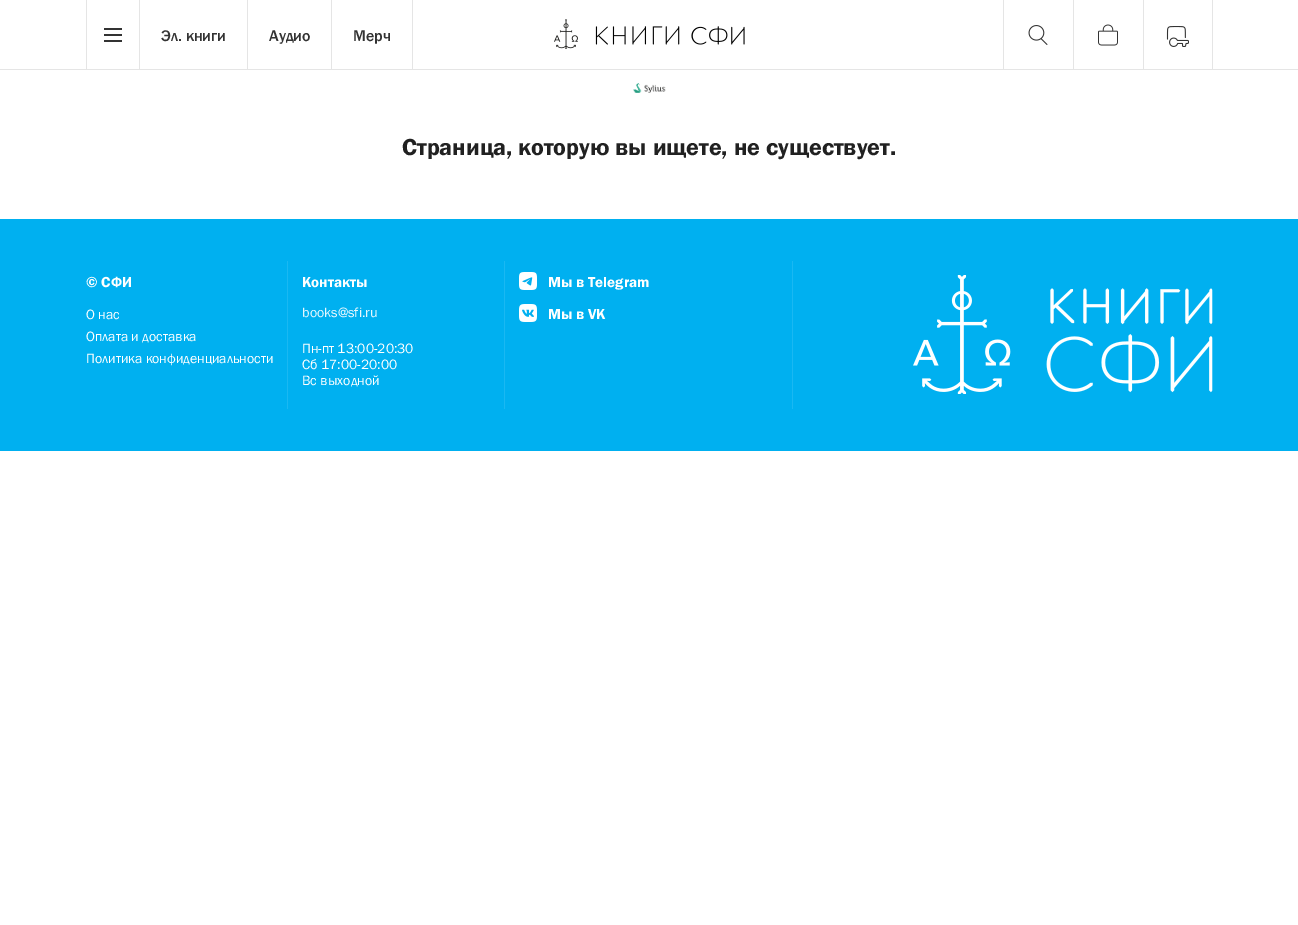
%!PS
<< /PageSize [1298 925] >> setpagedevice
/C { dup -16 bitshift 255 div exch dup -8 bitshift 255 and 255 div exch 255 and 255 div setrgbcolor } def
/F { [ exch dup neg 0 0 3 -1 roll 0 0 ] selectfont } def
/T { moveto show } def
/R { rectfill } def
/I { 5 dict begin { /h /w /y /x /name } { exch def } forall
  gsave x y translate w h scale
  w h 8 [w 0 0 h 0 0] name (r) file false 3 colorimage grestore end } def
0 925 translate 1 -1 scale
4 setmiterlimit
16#FFFFFF C
0 0 1298 925 R
16#E5E5E5 C
139 0 1 70 R
86 0 1 70 R
16#333333 C
104 28 18 2 R
104 34 18 2 R
104 40 18 2 R
16#E5E5E5 C
247 0 1 70 R
/FranklinGothic-Medium 16 F
16#333333 C
(Эл. книги) 161 41 T
16#E5E5E5 C
331 0 1 70 R
16#333333 C
(Аудио) 269 41 T
16#E5E5E5 C
412 0 1 70 R
16#333333 C
(Мерч) 353 41 T
(1.rgb) 554 19 191 30 I
16#E5E5E5 C
1003 0 1 70 R
(2.rgb) 1028 25 20 20 I
1073 0 1 70 R
(3.rgb) 1098 24 20 22 I
1212 0 1 70 R
1143 0 1 70 R
(4.rgb) 1166 26 23 21 I
0 69 1298 1 R
(5.rgb) 633 83 33 10 I
/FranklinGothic-Regular 24 F
16#212121 C
(Страница, которую вы ищете, не существует.) 402 155 T
16#00B0F0 C
0 219 1298 232 R
/FranklinGothic-Regular 15 F
16#FFFFFF C
(© СФИ) 86 287 T
/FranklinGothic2-Regular 14 F
(О нас) 86 319 T
(Оплата и доставка) 86 341 T
(Политика конфиденциальности) 86 363 T
16#1AB8F2 C
287 261 1 148 R
/FranklinGothic-Regular 15 F
16#FFFFFF C
(Контакты) 302 287 T
/FranklinGothic2-Regular 14 F
16#E6F7FE C
(books@sfi.ru) 302 317 T
16#FFFFFF C
(Пн-пт 13:00-20:30) 302 353 T
(Сб 17:00-20:00) 302 369 T
(Вс выходной) 302 385 T
16#1AB8F2 C
504 261 1 148 R
(6.rgb) 519 272 18 18 I
/FranklinGothic-Regular 15 F
16#FFFFFF C
(Мы в Telegram) 548 287 T
(7.rgb) 519 304 18 18 I
(Мы в VK) 548 319 T
16#1AB8F2 C
792 261 1 148 R
(8.rgb) 913 275 300 119 I
showpage
